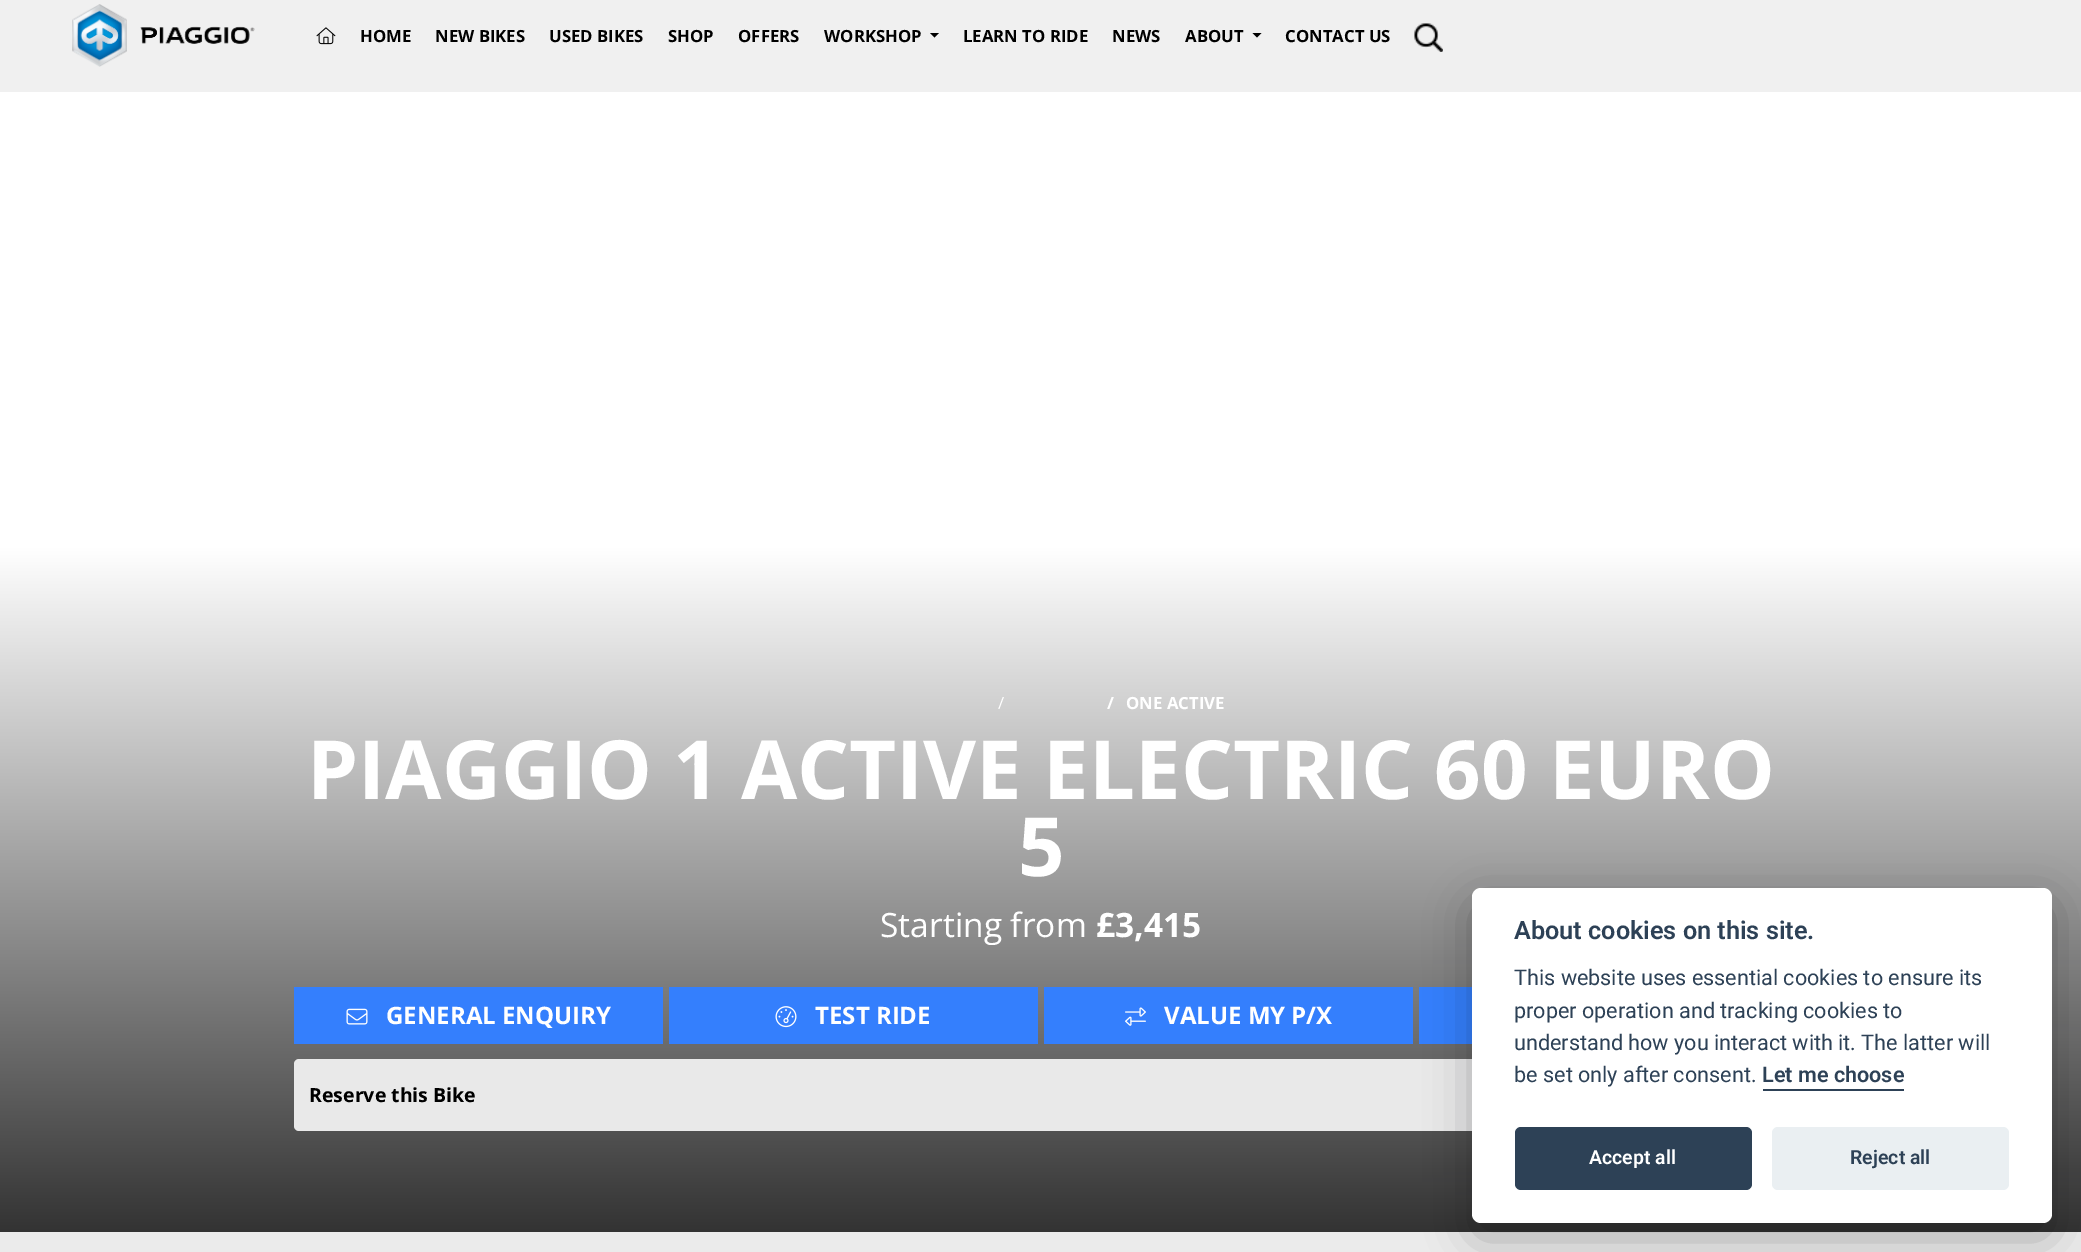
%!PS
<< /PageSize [2081 1252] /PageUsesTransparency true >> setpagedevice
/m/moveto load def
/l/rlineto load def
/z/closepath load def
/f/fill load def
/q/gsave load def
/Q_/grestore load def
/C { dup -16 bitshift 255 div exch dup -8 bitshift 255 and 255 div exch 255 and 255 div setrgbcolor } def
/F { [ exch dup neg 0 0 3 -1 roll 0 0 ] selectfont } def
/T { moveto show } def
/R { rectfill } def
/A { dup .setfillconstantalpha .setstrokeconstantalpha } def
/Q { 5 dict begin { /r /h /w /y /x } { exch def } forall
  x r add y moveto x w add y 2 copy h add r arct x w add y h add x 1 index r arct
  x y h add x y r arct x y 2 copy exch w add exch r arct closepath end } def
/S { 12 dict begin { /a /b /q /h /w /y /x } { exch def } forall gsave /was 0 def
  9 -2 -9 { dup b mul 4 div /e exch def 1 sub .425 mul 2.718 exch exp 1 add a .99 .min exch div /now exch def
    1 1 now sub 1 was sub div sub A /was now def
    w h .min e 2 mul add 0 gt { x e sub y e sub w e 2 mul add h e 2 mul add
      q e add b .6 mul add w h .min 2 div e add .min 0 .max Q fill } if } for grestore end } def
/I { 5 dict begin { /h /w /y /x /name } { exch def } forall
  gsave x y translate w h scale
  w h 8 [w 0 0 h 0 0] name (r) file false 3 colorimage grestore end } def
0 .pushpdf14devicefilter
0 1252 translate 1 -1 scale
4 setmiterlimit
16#F0F0F0 C
0 0 2081 1252 R
(1.rgb) 72 4 183 63 I
(2.rgb) 316 27 20 18 I
/OpenSans-Bold 16.75 F
16#000000 C
(HOME) 360 42 T
(NEW BIKES) 435 42 T
(USED BIKES) 549 42 T
(SHOP) 668 42 T
(OFFERS) 738 42 T
(WORKSHOP) 824 42 T
930 33 m 9 0 l -4.5 4.5 l z f
(LEARN TO RIDE) 963 42 T
(NEWS) 1112 42 T
(ABOUT) 1185 42 T
1252.5 33 m 9 0 l -4.5 4.5 l z f
(CONTACT US) 1285 42 T
(3.rgb) 1414 23 29 29 I
q 0 92 m 2081 0 l 0 1140 l -2081 0 l z clip newpath
<< /ShadingType 2 /ColorSpace /DeviceRGB /Coords [1041 1232 1041 92] /Extend [true true] /Function << /FunctionType 3 /Domain [0 1] /Functions [<< /FunctionType 2 /Domain [0 1] /C0 [.2 .2 .2] /C1 [1 1 1] /N 1 >> << /FunctionType 2 /Domain [0 1] /C0 [1 1 1] /C1 [1 1 1] /N 1 >>] /Bounds [.6] /Encode [0 1 0 1] >> >> shfill Q_
/OpenSans-Regular 16.75 F
16#FFFFFF C
(/) 998 709 T
/OpenSans-Bold 16.75 F
(/) 1107 709 T
(ONE ACTIVE) 1126 709 T
/OpenSans-Bold 81.6 F
(PIAGGIO 1 ACTIVE ELECTRIC 60 EURO) 307 799 T
(5) 1018 876 T
/OpenSans-Regular 33.5 F
(Starting from) 880 937 T
/OpenSans-Bold 33.5 F
(£3,415) 1096 937 T
16#347FFD C
294 987 369 57 R
(4.rgb) 346 1008 22 17 I
/OpenSans-Bold 24 F
16#FFFFFF C
(GENERAL ENQUIRY) 386 1024 T
16#347FFD C
669 987 369 57 R
(5.rgb) 775 1006 22 22 I
16#FFFFFF C
(TEST RIDE) 815 1024 T
16#347FFD C
1044 987 369 57 R
(6.rgb) 1125 1007 21 19 I
16#FFFFFF C
(VALUE MY P/X) 1164 1024 T
16#347FFD C
1419 987 53 57 R
16#E9E9E9 C
294 1059 1494 72 5 Q f
/OpenSans-Bold 19.5 F
16#000000 C
(Reserve this Bike) 309 1102 T
16#EBEBEB C
0 1232 2081 20 R
16#020203 C
1472 903 580 335 9 22.5 .28 S
16#FFFFFF C
1472 888 580 335 9 Q f
/Roboto-SemiBold 25.25 F
16#2D4156 C
(About cookies on this site.) 1514 939 T
/Roboto-Regular 21.6 F
(This website uses essential cookies to ensure its) 1514 985 T
(proper operation and tracking cookies to) 1514 1018 T
(understand how you interact with it. The latter will) 1514 1050 T
(be set only after consent.) 1514 1082 T
/Roboto-SemiBold 21.6 F
(Let me choose) 1762 1082 T
1763 1089 141 2 R
1515 1127 237 63 6 Q f
/Roboto-SemiBold 19.5 F
16#FFFFFF C
(Accept all) 1589 1164 T
16#EAEFF2 C
1772 1127 237 63 6 Q f
16#2D4156 C
(Reject all) 1850 1164 T
.poppdf14devicefilter showpage
